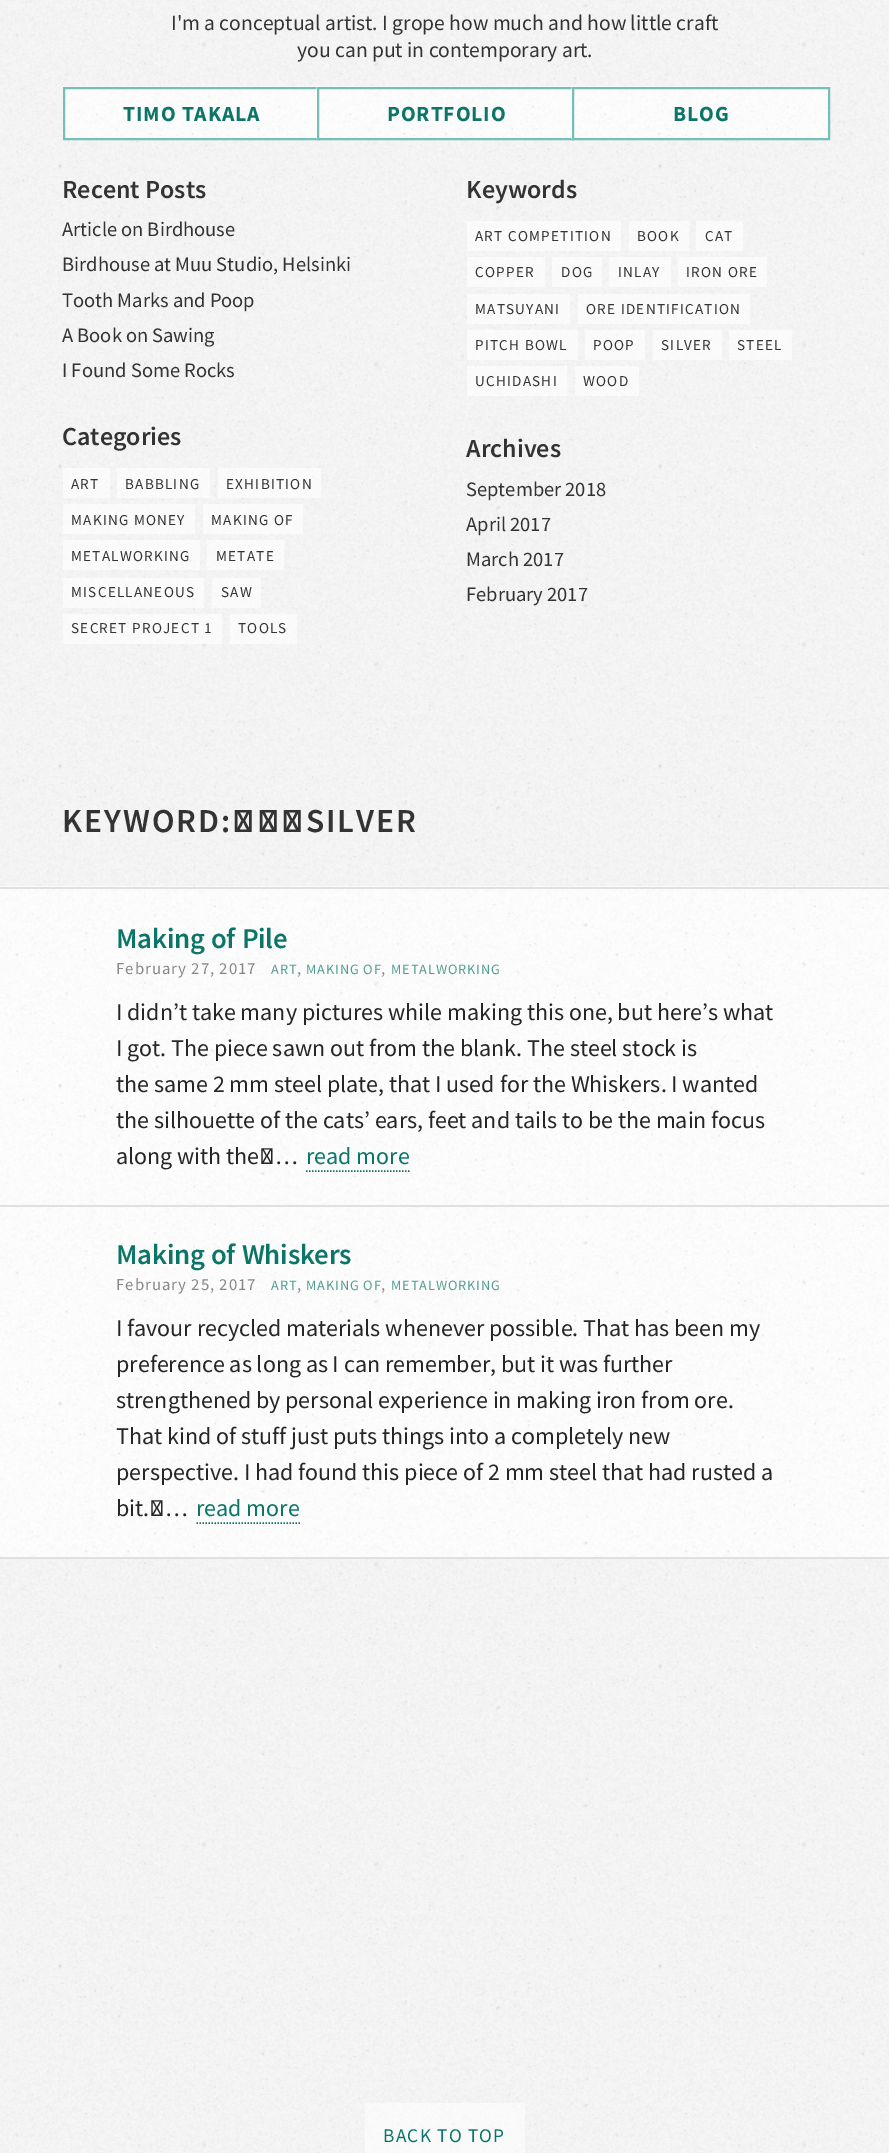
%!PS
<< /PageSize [889 2153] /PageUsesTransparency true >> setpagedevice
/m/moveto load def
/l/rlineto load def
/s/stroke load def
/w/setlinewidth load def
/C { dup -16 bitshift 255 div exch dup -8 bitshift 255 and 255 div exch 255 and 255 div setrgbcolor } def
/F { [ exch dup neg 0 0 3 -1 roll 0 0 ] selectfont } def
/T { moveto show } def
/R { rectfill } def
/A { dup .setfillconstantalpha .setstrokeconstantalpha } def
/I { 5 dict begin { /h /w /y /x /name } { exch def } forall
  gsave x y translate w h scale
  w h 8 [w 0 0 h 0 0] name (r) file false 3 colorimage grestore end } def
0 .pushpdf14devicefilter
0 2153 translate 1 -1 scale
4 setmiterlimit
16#FFFFFF C
0 0 889 2153 R
(1.rgb) 0 0 889 2153 I
(2.rgb) 763 22 108 108 I
/SourceSansPro-Regular 21.6 F
16#333333 C
(I'm a conceptual artist. I grope how much and how little craft) 171 30 T
(you can put in contemporary art.) 297 57 T
(3.rgb) 63 86 257 52 I
16#75BFB6 C
2 w
64 88 255 51 rectstroke
/SourceSansPro-Bold 21.6 F
16#0B7668 C
123 121 m .9 0 (TIMO TAKALA) ashow
(4.rgb) 316 86 259 53 I
16#75BFB6 C
318 88 256 51 rectstroke
16#0B7668 C
387 121 m .9 0 (PORTFOLIO) ashow
(5.rgb) 571 86 259 53 I
16#75BFB6 C
573 88 256 51 rectstroke
16#0B7668 C
673 121 m .9 0 (BLOG) ashow
/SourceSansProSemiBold-SemiBold 26 F
16#333333 C
(Recent Posts) 62 198 T
/SourceSansPro-Regular 20.5 F
(Article on Birdhouse) 62 236 T
(Birdhouse at Muu Studio, Helsinki) 62 271 T
(Tooth Marks and Poop) 62 307 T
(A Book on Sawing) 62 342 T
(I Found Some Rocks) 62 377 T
/SourceSansProSemiBold-SemiBold 26 F
(Keywords) 466 198 T
0.6 A
16#FFFFFF C
467 221 154 30 R
/SourceSansPro-Regular 15.1 F
1 A
16#333333 C
475 241 m 1.25 0 (ART COMPETITION) ashow
0.6 A
16#FFFFFF C
629 221 60 30 R
1 A
16#333333 C
637 241 m 1.25 0 (BOOK) ashow
0.6 A
16#FFFFFF C
696 221 47 30 R
1 A
16#333333 C
705 241 m 1.25 0 (CAT) ashow
0.6 A
16#FFFFFF C
467 257 78 30 R
1 A
16#333333 C
475 277 m 1.25 0 (COPPER) ashow
0.6 A
16#FFFFFF C
552 257 50 30 R
1 A
16#333333 C
561 277 m 1.25 0 (DOG) ashow
0.6 A
16#FFFFFF C
609 257 62 30 R
1 A
16#333333 C
618 277 m 1.25 0 (INLAY) ashow
0.6 A
16#FFFFFF C
678 257 89 30 R
1 A
16#333333 C
686 277 m 1.25 0 (IRON ORE) ashow
0.6 A
16#FFFFFF C
467 294 103 30 R
1 A
16#333333 C
475 314 m 1.25 0 (MATSUYANI) ashow
0.6 A
16#FFFFFF C
578 294 172 30 R
1 A
16#333333 C
586 314 m 1.25 0 (ORE IDENTIFICATION) ashow
0.6 A
16#FFFFFF C
467 330 111 30 R
1 A
16#333333 C
475 350 m 1.25 0 (PITCH BOWL) ashow
0.6 A
16#FFFFFF C
585 330 60 30 R
1 A
16#333333 C
593 350 m 1.25 0 (POOP) ashow
0.6 A
16#FFFFFF C
653 330 69 30 R
1 A
16#333333 C
661 350 m 1.25 0 (SILVER) ashow
0.6 A
16#FFFFFF C
729 330 63 30 R
1 A
16#333333 C
737 350 m 1.25 0 (STEEL) ashow
0.6 A
16#FFFFFF C
467 366 100 30 R
1 A
16#333333 C
475 386 m 1.25 0 (UCHIDASHI) ashow
0.6 A
16#FFFFFF C
575 366 64 30 R
1 A
16#333333 C
583 386 m 1.25 0 (WOOD) ashow
/SourceSansProSemiBold-SemiBold 26 F
(Categories) 62 445 T
0.6 A
16#FFFFFF C
63 468 47 30 R
/SourceSansPro-Regular 15.1 F
1 A
16#333333 C
71 489 m 1.25 0 (ART) ashow
0.6 A
16#FFFFFF C
117 468 93 30 R
1 A
16#333333 C
125 489 m 1.25 0 (BABBLING) ashow
0.6 A
16#FFFFFF C
218 468 103 30 R
1 A
16#333333 C
226 489 m 1.25 0 (EXHIBITION) ashow
0.6 A
16#FFFFFF C
63 504 132 30 R
1 A
16#333333 C
71 525 m 1.25 0 (MAKING MONEY) ashow
0.6 A
16#FFFFFF C
203 504 100 30 R
1 A
16#333333 C
211 525 m 1.25 0 (MAKING OF) ashow
0.6 A
16#FFFFFF C
63 540 137 30 R
1 A
16#333333 C
71 561 m 1.25 0 (METALWORKING) ashow
0.6 A
16#FFFFFF C
207 540 77 30 R
1 A
16#333333 C
216 561 m 1.25 0 (METATE) ashow
0.6 A
16#FFFFFF C
63 578 141 30 R
1 A
16#333333 C
71 597 m 1.25 0 (MISCELLANEOUS) ashow
0.6 A
16#FFFFFF C
212 578 49 30 R
1 A
16#333333 C
221 597 m 1.25 0 (SAW) ashow
0.6 A
16#FFFFFF C
63 614 159 30 R
1 A
16#333333 C
71 633 m 1.25 0 (SECRET PROJECT 1) ashow
0.6 A
16#FFFFFF C
230 614 67 30 R
1 A
16#333333 C
238 633 m 1.25 0 (TOOLS) ashow
/SourceSansProSemiBold-SemiBold 26 F
(Archives) 466 457 T
/SourceSansPro-Regular 20.5 F
(September 2018) 466 496 T
(April 2017) 466 531 T
(March 2017) 466 566 T
(February 2017) 466 601 T
/SourceSansProSemiBold-SemiBold 33.5 F
62 832 m 2 0 (KEYWORD: SILVER) ashow
(6.rgb) 0 886 889 318 I
16#E0E0E0 C
0 887 889 2 R
/SourceSansProSemiBold-SemiBold 28.75 F
16#0B7668 C
116 948 m 1 0 32 -.25 0 (Making of Pile) awidthshow
/SourceSansPro-Regular 16.75 F
16#878787 C
116 974 m 1 0 (February 27, 2017) ashow
/SourceSansPro-Regular 14.25 F
16#539E94 C
271 974 m .9 0 (ART) ashow
/SourceSansPro-Regular 16.75 F
16#878787 C
297 974 m 1 0 (,) ashow
/SourceSansPro-Regular 14.25 F
16#539E94 C
306 974 m .9 0 (MAKING OF) ashow
/SourceSansPro-Regular 16.75 F
16#878787 C
381 974 m 1 0 (,) ashow
/SourceSansPro-Regular 14.25 F
16#539E94 C
391 974 m .9 0 (METALWORKING) ashow
/SourceSansPro-Regular 24 F
16#262626 C
(I didn’t take many pictures while making this one, but here’s what) 116 1020 T
(I got. The piece sawn out from the blank. The steel stock is) 116 1056 T
(the same 2 mm steel plate, that I used for the Whiskers. I wanted) 116 1092 T
(the silhouette of the cats’ ears, feet and tails to be the main focus) 116 1128 T
(along with the …) 116 1164 T
16#0B7668 C
(read more) 306 1164 T
16#0B7063 C
1.5 w
[1.5 1.5] 0 setdash
306 1171 m 103.5 0 l s
(7.rgb) 0 1204 889 353 I
16#E0E0E0 C
0 1205 889 2 R
0 1557 889 2 R
/SourceSansProSemiBold-SemiBold 28.75 F
16#0B7668 C
116 1264 m 1 0 32 -.25 0 (Making of Whiskers) awidthshow
/SourceSansPro-Regular 16.75 F
16#878787 C
116 1290 m 1 0 (February 25, 2017) ashow
/SourceSansPro-Regular 14.25 F
16#539E94 C
271 1290 m .9 0 (ART) ashow
/SourceSansPro-Regular 16.75 F
16#878787 C
297 1290 m 1 0 (,) ashow
/SourceSansPro-Regular 14.25 F
16#539E94 C
306 1290 m .9 0 (MAKING OF) ashow
/SourceSansPro-Regular 16.75 F
16#878787 C
381 1290 m 1 0 (,) ashow
/SourceSansPro-Regular 14.25 F
16#539E94 C
391 1290 m .9 0 (METALWORKING) ashow
/SourceSansPro-Regular 24 F
16#262626 C
(I favour recycled materials whenever possible. That has been my) 116 1336 T
(preference as long as I can remember, but it was further) 116 1372 T
(strengthened by personal experience in making iron from ore.) 116 1408 T
(That kind of stuff just puts things into a completely new) 116 1444 T
(perspective. I had found this piece of 2 mm steel that had rusted a) 116 1480 T
(bit. …) 116 1516 T
16#0B7668 C
(read more) 196 1516 T
16#0B7063 C
196.5 1523 m 103.5 0 l s
0.5 A
16#FFFFFF C
365 2103 160 50 R
/SourceSansPro-Regular 19.25 F
1 A
16#0B7668 C
383 2142 m 1.25 0 (BACK TO TOP) ashow
.poppdf14devicefilter showpage
